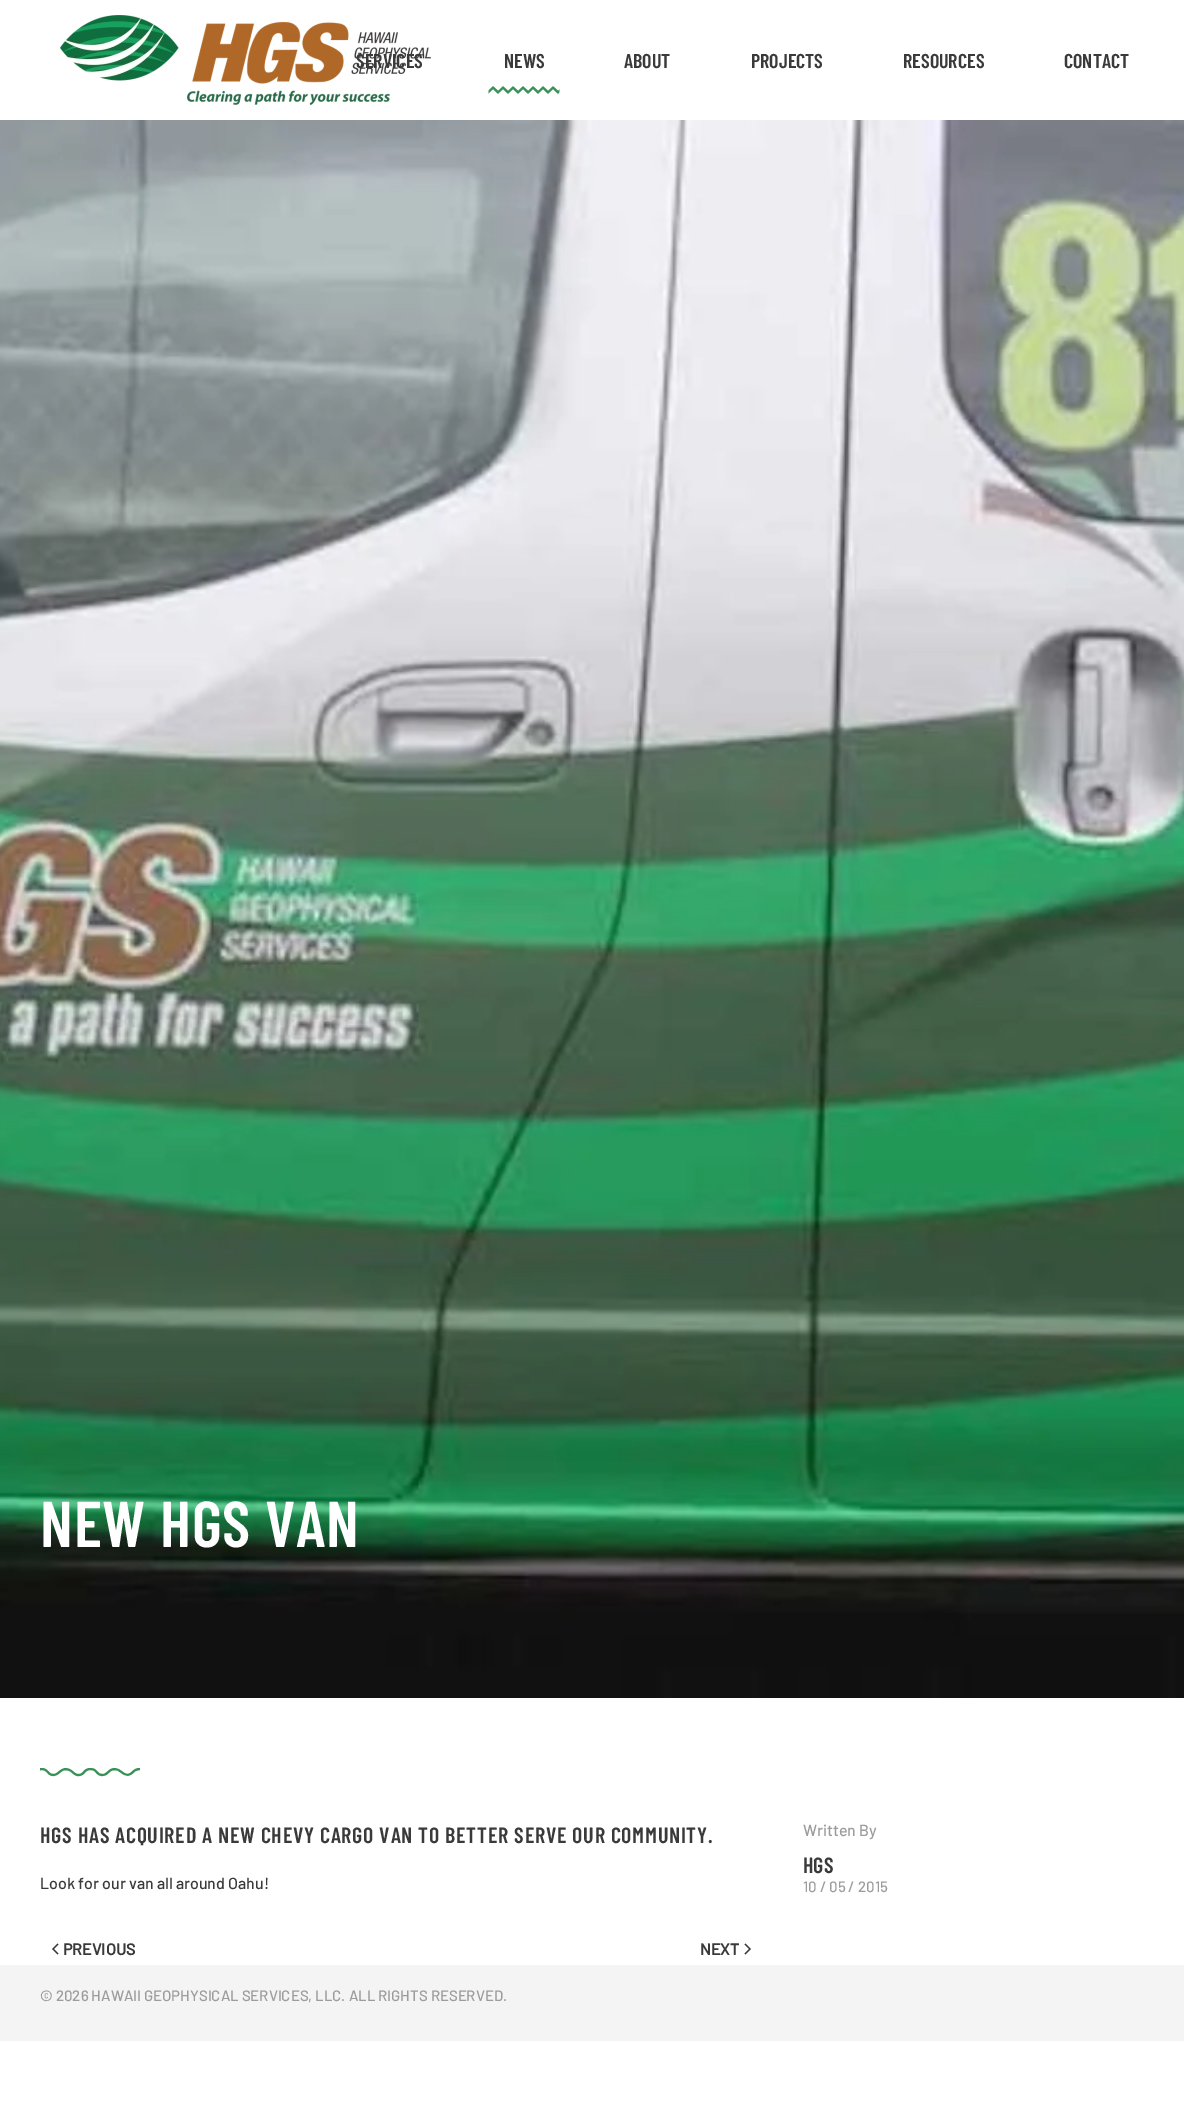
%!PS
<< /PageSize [1184 2122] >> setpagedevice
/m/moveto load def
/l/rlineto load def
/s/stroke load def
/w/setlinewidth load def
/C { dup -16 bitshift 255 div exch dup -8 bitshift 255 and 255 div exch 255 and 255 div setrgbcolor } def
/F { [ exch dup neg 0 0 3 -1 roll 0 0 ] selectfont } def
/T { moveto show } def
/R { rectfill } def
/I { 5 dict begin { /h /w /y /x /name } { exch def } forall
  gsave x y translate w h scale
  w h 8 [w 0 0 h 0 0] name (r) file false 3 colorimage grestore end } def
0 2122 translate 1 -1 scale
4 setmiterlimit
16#FFFFFF C
0 0 1184 2122 R
(1.rgb) 60 15 371 90 I
/BarlowCondensed-SemiBold 20 F
16#3A3A3A C
(SERVICES) 356 68 T
(NEWS) 504 68 T
(2.rgb) 488 86 72 8 I
(ABOUT) 624 68 T
(PROJECTS) 751 68 T
(RESOURCES) 903 68 T
(CONTACT) 1064 68 T
(3.rgb) 0 120 1184 1578 I
/BarlowCondensed-SemiBold 64.75 F
16#FFFFFF C
40 1547 m .75 0 (NEW HGS VAN) ashow
(4.rgb) 40 1768 100 9 I
/BarlowCondensed-SemiBold 22 F
16#3A3A3A C
40 1843 m .75 0 (HGS HAS ACQUIRED A NEW CHEVY CARGO VAN TO BETTER SERVE OUR COMMUNITY.) ashow
/Barlow-Medium 16 F
(Look for our van all around Oahu!) 40 1889 T
1.2 w
58 1944 m -5 5 l 5 5 l s
/Barlow-Bold 16 F
(PREVIOUS) 63 1955 T
(NEXT) 700 1955 T
745 1944 m 5 5 l -5 5 l s
/Barlow-Medium 16 F
16#9C9C9C C
(Written By) 803 1836 T
/BarlowCondensed-SemiBold 22 F
16#3A3A3A C
(HGS) 803 1873 T
/Barlow-Medium 15 F
16#9C9C9C C
(10 / 05 / 2015) 803 1892 T
16#F4F4F4 C
0 1965 1184 76 R
16#9C9C9C C
(© 2026 HAWAII GEOPHYSICAL SERVICES, LLC. ALL RIGHTS RESERVED.) 40 2001 T
showpage
